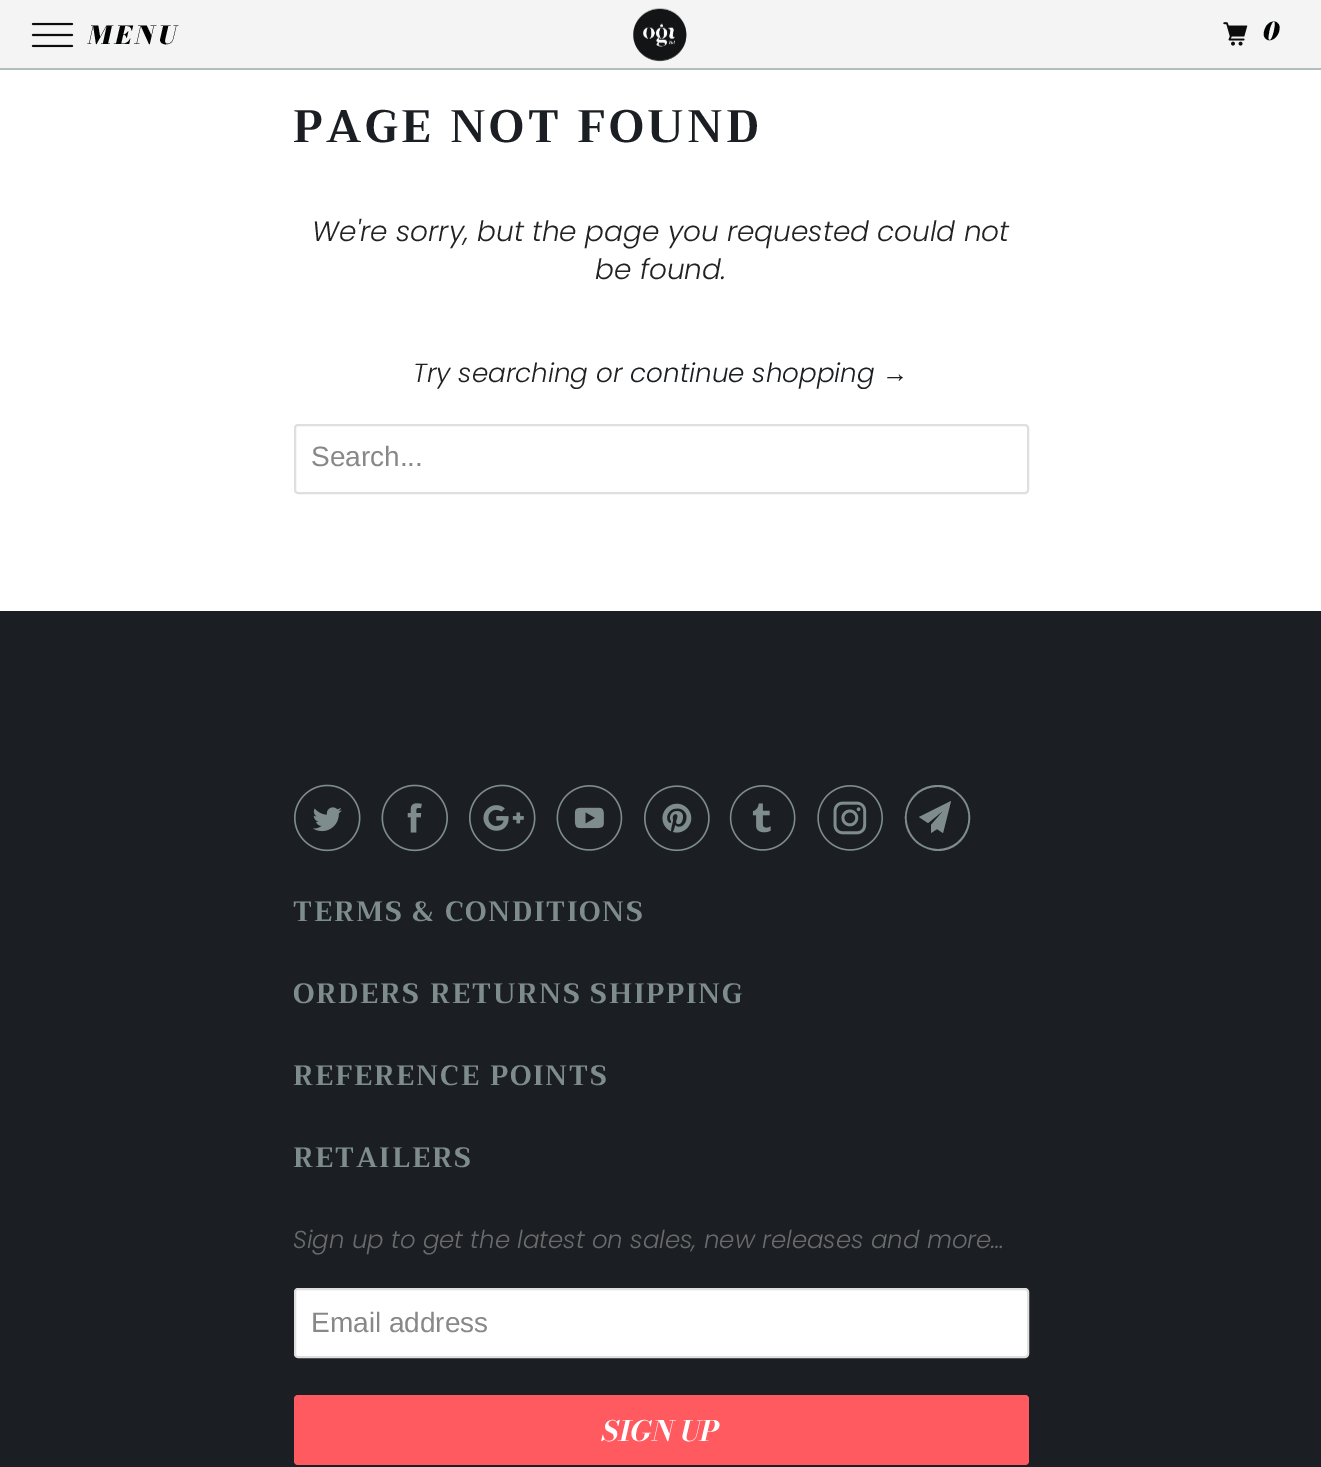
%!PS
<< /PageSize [1321 1467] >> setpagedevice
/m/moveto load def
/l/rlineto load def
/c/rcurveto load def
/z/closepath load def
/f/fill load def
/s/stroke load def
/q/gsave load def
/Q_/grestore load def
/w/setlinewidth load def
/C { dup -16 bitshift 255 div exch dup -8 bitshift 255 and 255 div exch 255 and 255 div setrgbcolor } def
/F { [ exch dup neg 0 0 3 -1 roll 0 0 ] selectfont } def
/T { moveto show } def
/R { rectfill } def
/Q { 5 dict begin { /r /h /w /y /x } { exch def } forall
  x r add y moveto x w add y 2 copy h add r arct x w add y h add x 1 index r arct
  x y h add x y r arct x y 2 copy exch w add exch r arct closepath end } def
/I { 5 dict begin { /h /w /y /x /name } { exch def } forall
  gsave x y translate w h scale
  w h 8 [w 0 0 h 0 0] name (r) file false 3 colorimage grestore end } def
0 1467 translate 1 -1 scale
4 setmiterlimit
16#FFFFFF C
0 0 1321 1467 R
16#F4F4F4 C
0 0 1321 68 R
16#B0BEBE C
0 68 1321 2 R
(1.rgb) 31 22 43 26 I
/BodoniModa-BlackItalic 24.5 F
16#010202 C
88 44 m 3.5 0 (MENU) ashow
(2.rgb) 633 8 54 54 I
(3.rgb) 1223 22 25 24 I
1262 40 m 3.5 0 (0) ashow
/Trirong-Bold 45.5 F
16#1B1F23 C
293 142 m 3.5 0 (PAGE NOT FOUND) ashow
/Poppins-LightItalic 28 F
16#222222 C
(We're sorry, but the page you requested could not) 312 241 T
(be found.) 595 279 T
/Poppins-LightItalic 26.25 F
(Try searching or) 413 382 T
16#1B1F23 C
(continue shopping) 630 382 T
/LiberationSans-Regular 26.25 F
(→) 882 382 T
16#DFDFDF C
2 w
295 425 733 68 3 Q s
/LiberationSans-Regular 28 F
16#888888 C
(Search...) 311 466 T
16#1B1F23 C
0 611 1321 856 R
(4.rgb) 294 784 67 68 I
(5.rgb) 381 784 67 68 I
(6.rgb) 469 784 67 68 I
(7.rgb) 556 785 67 66 I
(8.rgb) 644 785 66 67 I
(9.rgb) 729 785 67 66 I
(10.rgb) 817 785 66 66 I
16#7F8C8D C
943 833 m -6 -4 l -6 4 l 0 -8 l 13 -15 l -16 13 l -9 -6 l 32 -16 l z 938 787 m -7 0 -14 2 -19 6 c -24 18 -11 56 19 56 c 29 0 42 -38 18 -56 c -5 -4 -12 -6 -18 -6 c z 938 851 m -7 0 -14 -3 -20 -7 c -25 -19 -12 -59 20 -59 c 7 0 14 2 19 7 c 25 18 12 59 -19 59 c z f
/Trirong-Bold 28 F
293 921 m 1.75 0 (TERMS & CONDITIONS) ashow
293 1003 m 1.75 0 (ORDERS RETURNS SHIPPING) ashow
293 1085 m 1.75 0 (REFERENCE POINTS) ashow
293 1167 m 1.75 0 (RETAILERS) ashow
/Poppins-LightItalic 24.5 F
16#6B6B6B C
(Sign up to get the latest on sales, new releases and more…) 293 1248 T
16#FFFFFF C
295 1289 733 68 3 Q q f Q_
16#DFDFDF C
s
/LiberationSans-Regular 28 F
16#888888 C
(Email address) 311 1332 T
16#FF5A5F C
294 1395 735 70 4 Q f
/BodoniModa-BoldItalic 28 F
16#FFFFFF C
(SIGN UP) 602 1441 T
showpage
